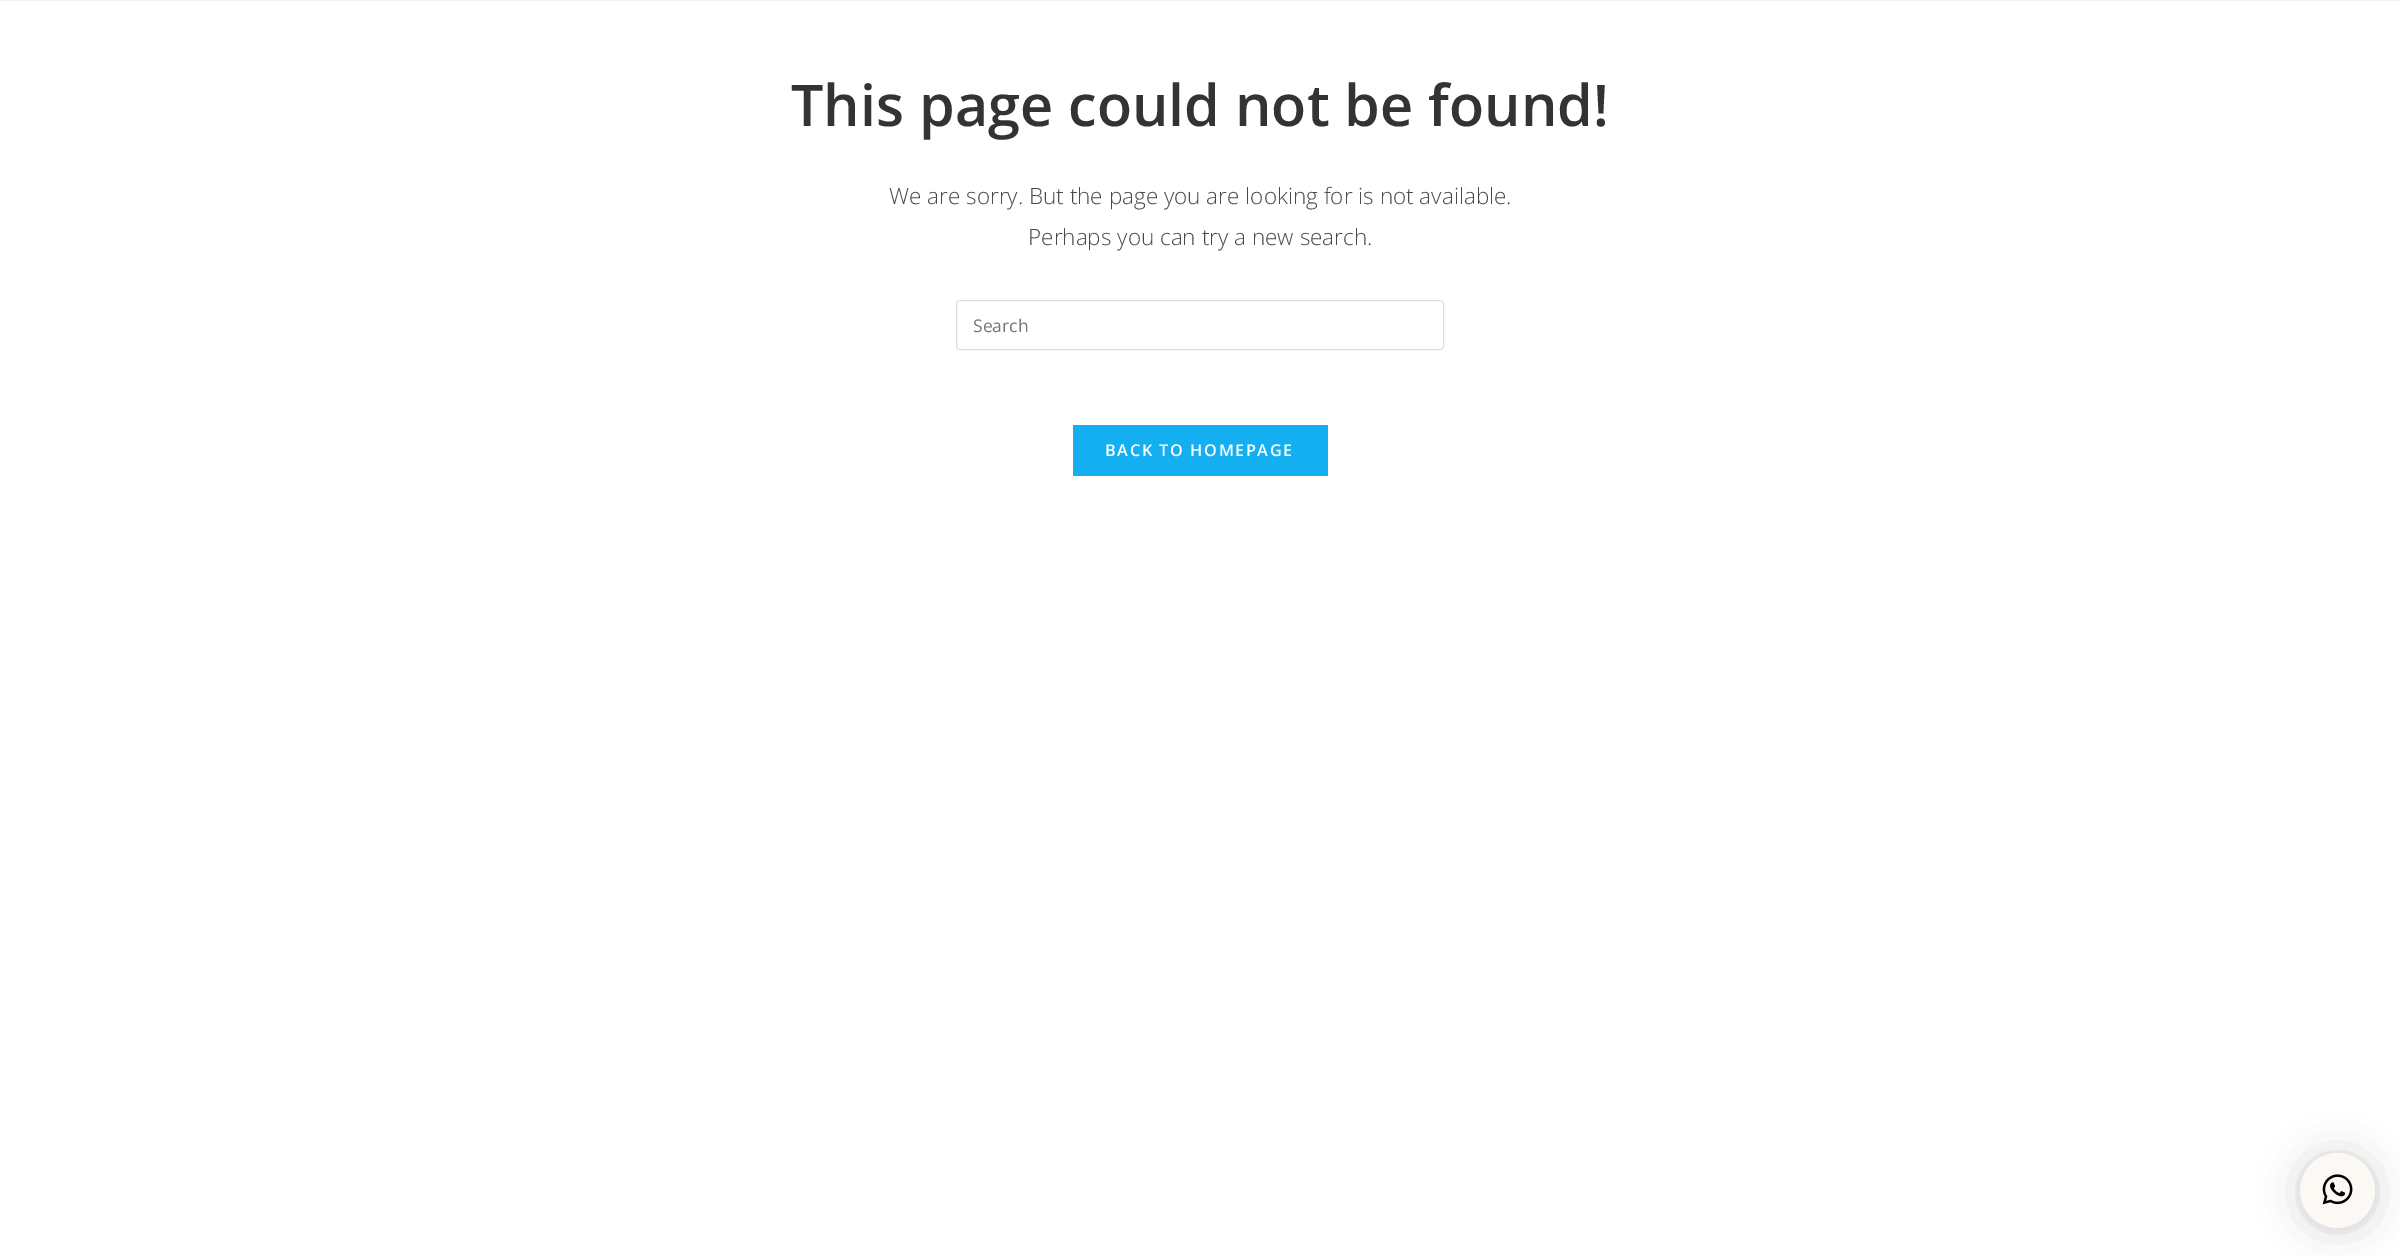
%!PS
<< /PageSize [2400 1257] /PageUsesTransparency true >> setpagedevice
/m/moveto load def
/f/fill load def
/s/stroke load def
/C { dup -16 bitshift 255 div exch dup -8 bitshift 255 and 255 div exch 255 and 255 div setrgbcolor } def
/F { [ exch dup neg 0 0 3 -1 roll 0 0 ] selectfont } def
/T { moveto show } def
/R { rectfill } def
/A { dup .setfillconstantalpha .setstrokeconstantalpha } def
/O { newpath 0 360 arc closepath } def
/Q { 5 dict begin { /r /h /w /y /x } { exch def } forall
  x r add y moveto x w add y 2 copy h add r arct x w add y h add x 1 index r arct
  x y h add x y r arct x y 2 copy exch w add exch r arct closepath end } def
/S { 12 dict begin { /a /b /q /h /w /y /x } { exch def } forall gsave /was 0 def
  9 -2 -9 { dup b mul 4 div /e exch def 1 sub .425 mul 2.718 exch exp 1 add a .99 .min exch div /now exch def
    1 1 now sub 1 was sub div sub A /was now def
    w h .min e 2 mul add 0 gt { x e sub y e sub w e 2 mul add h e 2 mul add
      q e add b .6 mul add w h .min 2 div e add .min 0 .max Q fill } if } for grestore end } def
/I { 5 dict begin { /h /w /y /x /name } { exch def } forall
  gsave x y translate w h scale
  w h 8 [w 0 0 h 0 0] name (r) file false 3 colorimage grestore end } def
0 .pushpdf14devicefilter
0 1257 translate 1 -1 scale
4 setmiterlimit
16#FFFFFF C
0 0 2400 1257 R
16#F1F1F1 C
0 0 2400 1 R
/OpenSans-SemiBold 57.5 F
16#333333 C
(This page could not be found!) 791 126 T
/OpenSans-Light 22.5 F
16#4A4A4A C
(We are sorry. But the page you are looking for is not available.) 889 204 T
(Perhaps you can try a new search.) 1028 245 T
16#DDDDDD C
956.5 300.5 487 49 3.5 Q s
/OpenSans-Regular 17.5 F
16#757575 C
(Search) 973 332 T
16#13AFF0 C
1073 425 255 51 R
/OpenSans-SemiBold 16.25 F
16#FFFFFF C
1105 456 m 1.6 0 (BACK TO HOMEPAGE) ashow
16#000000 C
2300 1155 75 75 37.5 20 .16 S
2300 1154 75 75 37.5 4 .06 S
16#FCF8F3 C
2337.5 1190.5 37.5 O f
(1.rgb) 2322 1174 31 31 I
.poppdf14devicefilter showpage
